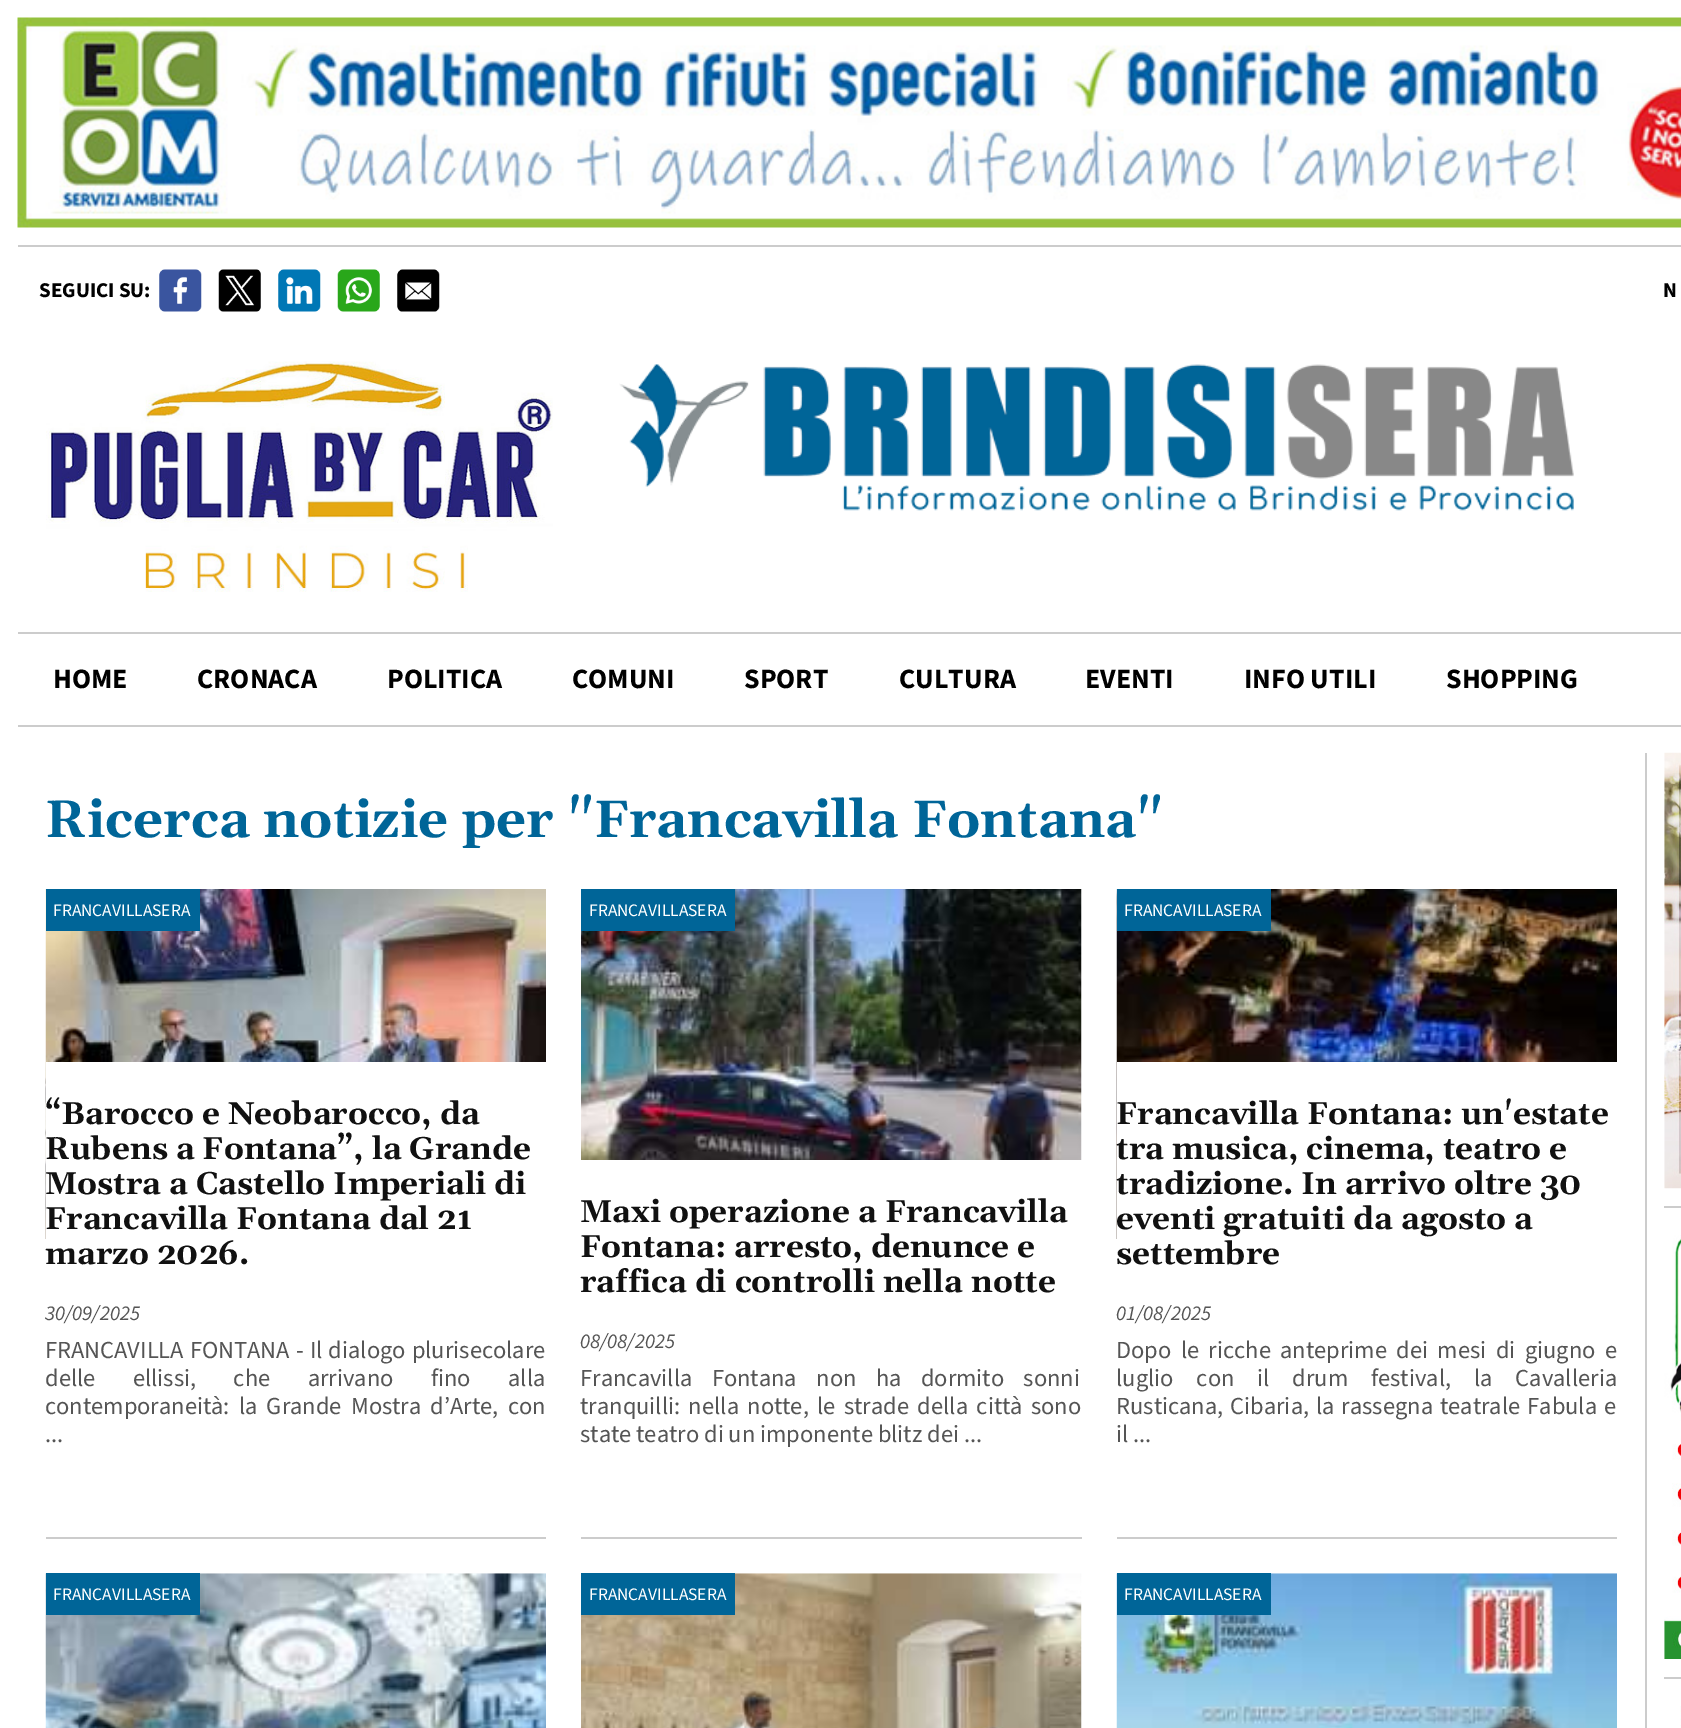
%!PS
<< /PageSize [1681 1728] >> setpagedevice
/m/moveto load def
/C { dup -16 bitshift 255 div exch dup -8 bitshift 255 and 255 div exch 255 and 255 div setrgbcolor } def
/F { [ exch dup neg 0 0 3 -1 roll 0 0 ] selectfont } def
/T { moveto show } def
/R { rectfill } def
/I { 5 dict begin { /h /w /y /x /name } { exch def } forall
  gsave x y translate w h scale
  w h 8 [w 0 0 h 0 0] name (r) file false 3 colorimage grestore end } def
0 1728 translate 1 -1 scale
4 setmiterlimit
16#FFFFFF C
0 0 1681 1728 R
16#CCCCCC C
18 245 1663 2 R
(1.rgb) 17 17 1664 211 I
/SourceSans3-Bold 21 F
16#000000 C
(SEGUICI SU:) 39 297 T
(2.rgb) 159 269 43 43 I
(3.rgb) 218 269 43 43 I
(4.rgb) 278 269 43 43 I
(5.rgb) 337 269 43 43 I
(6.rgb) 397 269 43 43 I
(7.rgb) 46 361 507 231 I
(N) 1663 297 T
(8.rgb) 619 364 955 147 I
16#CCCCCC C
18 632 1663 2 R
18 725 1663 2 R
/SourceSans3-Bold 28 F
16#000000 C
(HOME) 53 688 T
(CRONACA) 197 688 T
(POLITICA) 387 688 T
(COMUNI) 572 688 T
(SPORT) 744 688 T
(CULTURA) 899 688 T
(EVENTI) 1085 688 T
(INFO UTILI) 1244 688 T
(SHOPPING) 1446 688 T
16#CCCCCC C
1645 753 2 975 R
/Gelasio-Bold 52.5 F
16#006598 C
(Ricerca notizie per "Francavilla Fontana") 45 837 T
16#CCCCCC C
46 1537 500 2 R
(9.rgb) 45 889 501 350 I
16#006598 C
46 889 154 42 R
/SourceSans3-Regular 17.5 F
16#FFFFFF C
(FRANCAVILLASERA) 53 916 T
46 1062 500 177 R
/Gelasio-Bold 31.5 F
16#111111 C
(“Barocco e Neobarocco, da) 45 1124 T
(Rubens a Fontana”, la Grande) 45 1159 T
(Mostra a Castello Imperiali di) 45 1194 T
(Francavilla Fontana dal 21) 45 1229 T
(marzo 2026.) 45 1264 T
/SourceSans3-Italic 21 F
16#555555 C
(30/09/2025) 45 1320 T
/SourceSans3-Regular 24.5 F
45 1358 m 1.25 0 32 (FRANCAVILLA FONTANA - Il dialogo plurisecolare) widthshow
45 1386 m 32.5 0 32 (delle ellissi, che arrivano fino alla) widthshow
45 1414 m 4.25 0 32 (contemporaneità: la Grande Mostra d’Arte, con) widthshow
(...) 45 1442 T
16#CCCCCC C
581 1537 501 2 R
(10.rgb) 581 889 501 271 I
16#006598 C
581 889 154 42 R
/SourceSans3-Regular 17.5 F
16#FFFFFF C
(FRANCAVILLASERA) 589 916 T
/Gelasio-Bold 31.5 F
16#111111 C
(Maxi operazione a Francavilla) 580 1222 T
(Fontana: arresto, denunce e) 580 1257 T
(raffica di controlli nella notte) 580 1292 T
/SourceSans3-Italic 21 F
16#555555 C
(08/08/2025) 580 1348 T
/SourceSans3-Regular 24.5 F
580 1386 m 14.5 0 32 (Francavilla Fontana non ha dormito sonni) widthshow
580 1414 m 3.5 0 32 (tranquilli: nella notte, le strade della città sono) widthshow
(state teatro di un imponente blitz dei ...) 580 1442 T
16#CCCCCC C
1117 1537 500 2 R
(11.rgb) 1116 889 501 350 I
16#006598 C
1117 889 154 42 R
/SourceSans3-Regular 17.5 F
16#FFFFFF C
(FRANCAVILLASERA) 1124 916 T
1117 1062 500 177 R
/Gelasio-Bold 31.5 F
16#111111 C
(Francavilla Fontana: un'estate) 1116 1124 T
(tra musica, cinema, teatro e) 1116 1159 T
(tradizione. In arrivo oltre 30) 1116 1194 T
(eventi gratuiti da agosto a) 1116 1229 T
(settembre) 1116 1264 T
/SourceSans3-Italic 21 F
16#555555 C
(01/08/2025) 1116 1320 T
/SourceSans3-Regular 24.5 F
1116 1358 m 4.5 0 32 (Dopo le ricche anteprime dei mesi di giugno e) widthshow
1116 1386 m 18 0 32 (luglio con il drum festival, la Cavalleria) widthshow
1116 1414 m 2 0 32 (Rusticana, Cibaria, la rassegna teatrale Fabula e) widthshow
(il ...) 1116 1442 T
(12.rgb) 45 1573 501 155 I
16#006598 C
46 1573 154 42 R
/SourceSans3-Regular 17.5 F
16#FFFFFF C
(FRANCAVILLASERA) 53 1600 T
(13.rgb) 581 1573 501 155 I
16#006598 C
581 1573 154 42 R
16#FFFFFF C
(FRANCAVILLASERA) 589 1600 T
(14.rgb) 1116 1573 501 155 I
16#006598 C
1117 1573 154 42 R
16#FFFFFF C
(FRANCAVILLASERA) 1124 1600 T
16#CCCCCC C
1664 1206 17 2 R
(15.rgb) 1664 752 17 437 I
1664 1677 17 2 R
(16.rgb) 1664 1235 17 424 I
(17.rgb) 1680 1706 1 22 I
showpage
